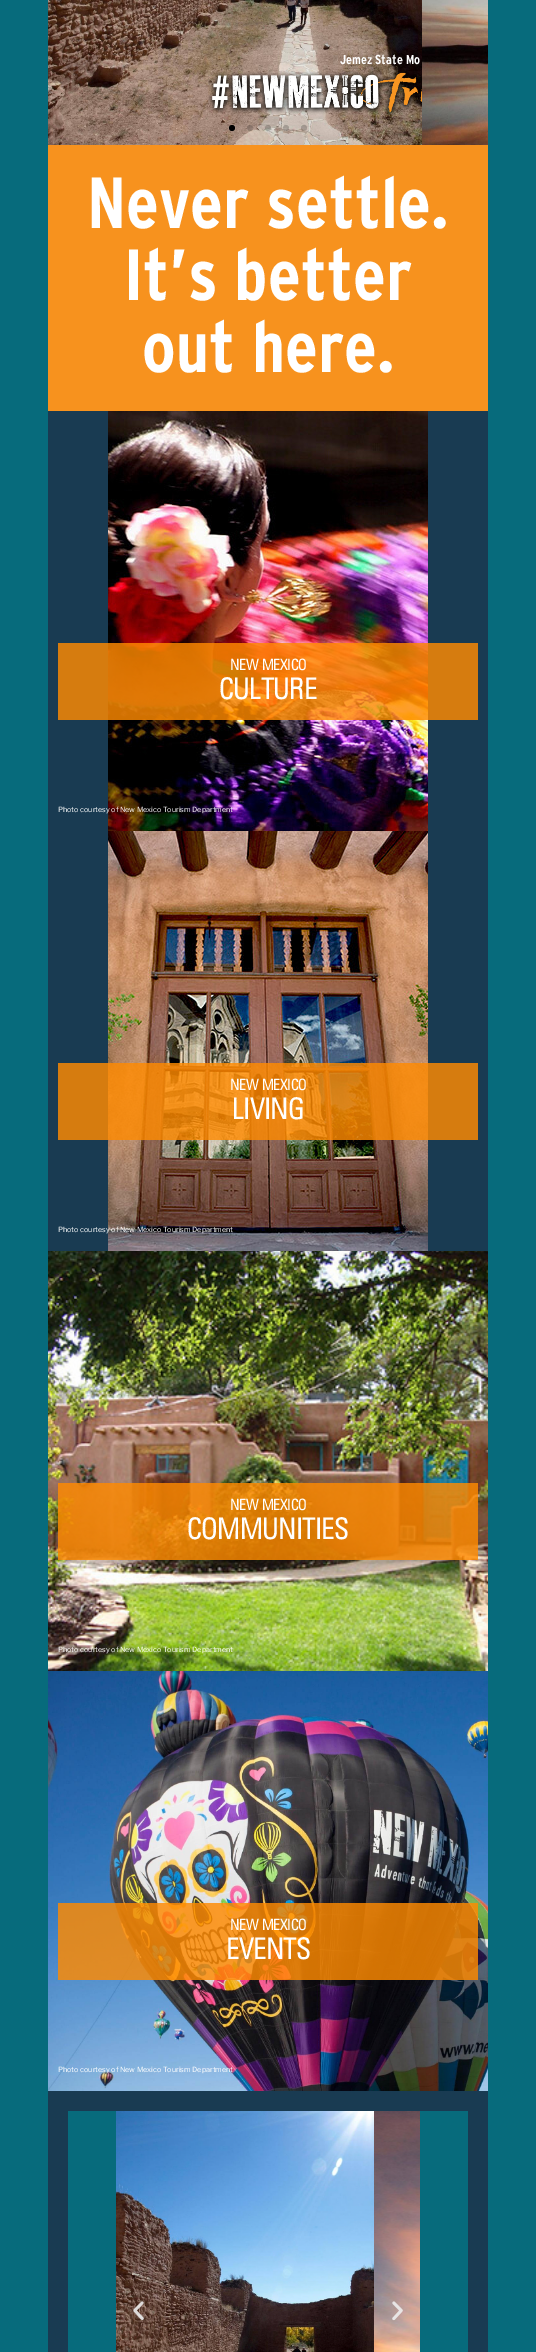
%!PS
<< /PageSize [536 2352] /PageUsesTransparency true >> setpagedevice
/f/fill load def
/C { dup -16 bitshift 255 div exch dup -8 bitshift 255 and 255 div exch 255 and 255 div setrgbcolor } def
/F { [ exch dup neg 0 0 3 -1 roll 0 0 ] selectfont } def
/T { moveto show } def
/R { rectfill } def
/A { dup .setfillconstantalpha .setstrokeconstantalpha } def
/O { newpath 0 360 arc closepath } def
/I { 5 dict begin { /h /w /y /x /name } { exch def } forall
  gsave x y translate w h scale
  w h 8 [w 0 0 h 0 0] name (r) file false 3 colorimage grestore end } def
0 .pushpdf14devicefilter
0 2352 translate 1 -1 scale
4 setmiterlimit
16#076B7C C
0 0 536 2352 R
(1.rgb) 48 0 374 145 I
/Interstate-Bold 13 F
16#FFFFFF C
(Jemez State Mo) 340 64 T
(2.rgb) 207 71 215 44 I
(3.rgb) 422 0 66 145 I
16#000000 C
232 128 3 O f
0.2 A
250 128 3 O f
268 128 3 O f
286 128 3 O f
304 128 3 O f
1 A
16#193B52 C
48 411 440 1941 R
16#F7921E C
48 145 440 266 R
/Interstate-Bold 72 F
16#FFFFFF C
(Never settle.) 87 228 T
(It’s better) 124 300 T
(out here.) 142 372 T
(4.rgb) 108 411 320 420 I
0.82 A
16#FF8A00 C
58 643 420 77 R
/Univers-Bold 15 F
1 A
16#FFFFFF C
(NEW MEXICO) 230 670 T
/Univers-Bold 28.75 F
(CULTURE) 219 699 T
/LibreFranklin-Thin 7.2 F
(Photo courtesy of New Mexico Tourism Department) 58 812 T
(5.rgb) 108 831 320 420 I
0.82 A
16#FF8A00 C
58 1063 420 77 R
/Univers-Bold 15 F
1 A
16#FFFFFF C
(NEW MEXICO) 230 1090 T
/Univers-Bold 28.75 F
(LIVING) 232 1119 T
/LibreFranklin-Thin 7.2 F
(Photo courtesy of New Mexico Tourism Department) 58 1232 T
(6.rgb) 48 1251 440 420 I
0.82 A
16#FF8A00 C
58 1483 420 77 R
/Univers-Bold 15 F
1 A
16#FFFFFF C
(NEW MEXICO) 230 1510 T
/Univers-Bold 28.75 F
(COMMUNITIES) 187 1539 T
/LibreFranklin-Thin 7.2 F
(Photo courtesy of New Mexico Tourism Department) 58 1652 T
(7.rgb) 48 1671 440 420 I
0.82 A
16#FF8A00 C
58 1903 420 77 R
/Univers-Bold 15 F
1 A
16#FFFFFF C
(NEW MEXICO) 230 1930 T
/Univers-Bold 28.75 F
(EVENTS) 226 1959 T
/LibreFranklin-Thin 7.2 F
(Photo courtesy of New Mexico Tourism Department) 58 2072 T
16#076B7C C
420 2111 48 241 R
68 2111 48 241 R
(8.rgb) 116 2111 258 241 I
(9.rgb) 374 2111 46 241 I
(10.rgb) 133 2301 11 20 I
(11.rgb) 392 2301 11 20 I
.poppdf14devicefilter showpage
